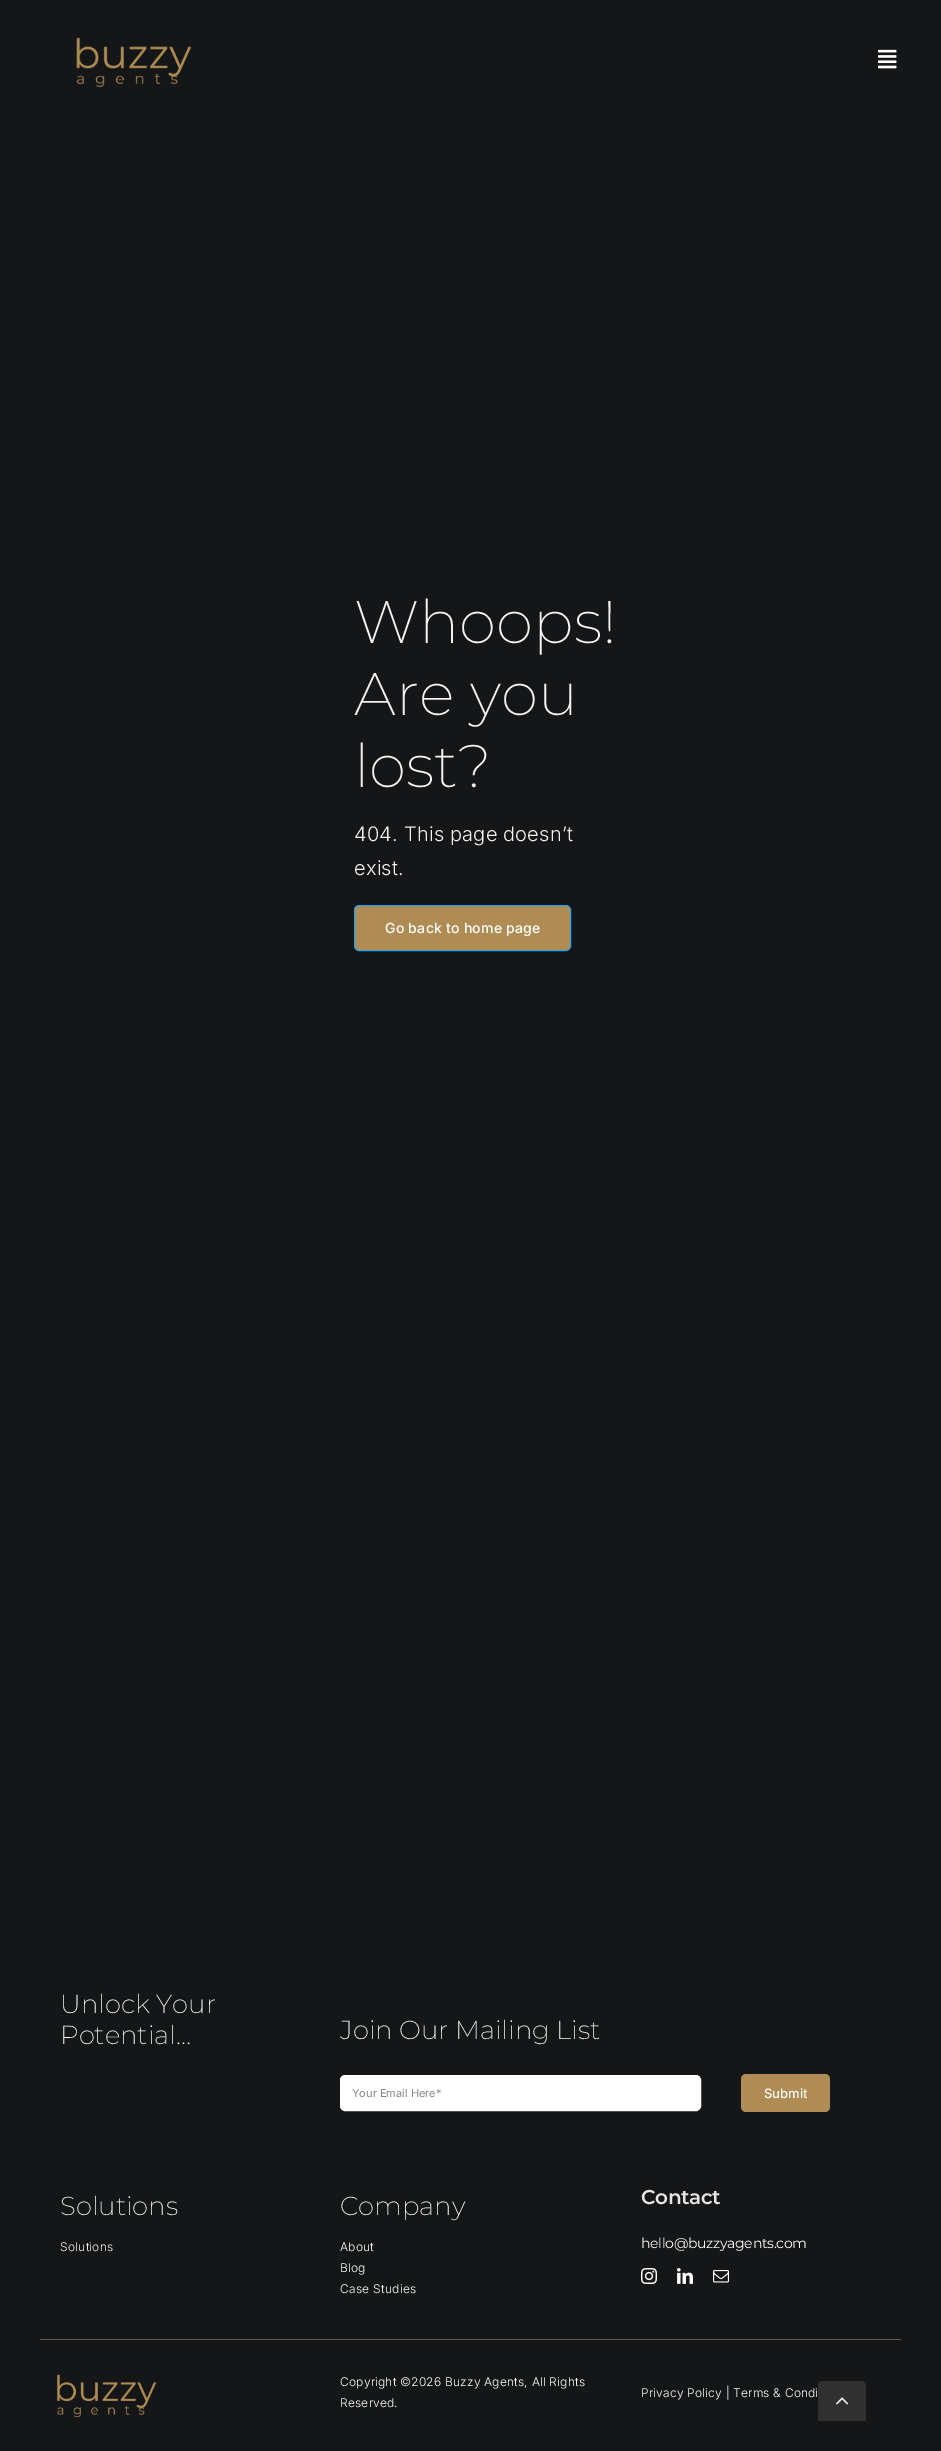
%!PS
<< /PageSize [941 2451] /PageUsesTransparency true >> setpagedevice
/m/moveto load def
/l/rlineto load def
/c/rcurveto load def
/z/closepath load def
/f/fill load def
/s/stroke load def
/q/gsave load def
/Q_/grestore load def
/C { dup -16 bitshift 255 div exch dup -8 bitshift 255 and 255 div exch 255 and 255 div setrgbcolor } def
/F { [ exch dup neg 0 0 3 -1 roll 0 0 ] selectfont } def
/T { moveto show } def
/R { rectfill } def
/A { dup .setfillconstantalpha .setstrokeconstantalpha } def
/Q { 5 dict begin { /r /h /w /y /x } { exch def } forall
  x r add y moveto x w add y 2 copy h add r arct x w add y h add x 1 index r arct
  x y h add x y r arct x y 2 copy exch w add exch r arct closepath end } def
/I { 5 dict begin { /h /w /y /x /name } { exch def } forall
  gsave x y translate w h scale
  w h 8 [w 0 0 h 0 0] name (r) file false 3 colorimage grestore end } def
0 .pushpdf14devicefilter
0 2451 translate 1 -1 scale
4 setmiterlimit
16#141617 C
0 0 941 2451 R
(1.rgb) 76 37 116 50 I
(2.rgb) 878 49 19 20 I
/Montserrat-ExtraLight 60 F
16#F4F2F2 C
(Whoops!) 354 643 T
(Are you) 354 715 T
(lost?) 354 787 T
/Inter-Light 20 F
354 841 m .2 0 (404. This page doesn’t) ashow
354 875 m .2 0 (exist.) ashow
16#AF8C53 C
354.5 905.5 216 45 4.5 Q q f Q_
16#24A0ED C
s
/Inter-Medium 14 F
16#FFFFFF C
385 933 m .25 0 (Go back to home page) ashow
/Montserrat-ExtraLight 26 F
(Unlock Your) 60 2013 T
(Potential…) 60 2044 T
(Join Our Mailing List) 340 2039 T
340.5 2075.5 360 35 4.5 Q q f Q_
s
/Inter-Regular 11 F
16#858688 C
(Your Email Here*) 352 2097 T
16#AF8C53 C
741 2074 89 38 5 Q f
/Inter-Medium 13 F
16#FFFFFF C
(Submit) 764 2098 T
/Montserrat-ExtraLight 26 F
(Solutions) 60 2215 T
/Inter-Light 12 F
16#F4F2F2 C
60 2251 m .25 0 (Solutions) ashow
/Montserrat-ExtraLight 26 F
16#FFFFFF C
(Company) 340 2215 T
/Inter-Light 12 F
340 2251 m .25 0 (About) ashow
340 2272 m .25 0 (Blog) ashow
340 2293 m .25 0 (Case Studies) ashow
/Montserrat-SemiBold 20 F
16#E8E6E5 C
641 2204 m -.3 0 (Contact) ashow
/Montserrat-Regular 14 F
16#FFFFFF C
641 2248 m -.3 0 (hello@buzzyagents.com) ashow
(3.rgb) 641 2268 16 16 I
(4.rgb) 677 2268 16 16 I
(5.rgb) 713 2270 16 13 I
16#5B5B5B C
40 2339 861 1 R
(6.rgb) 57 2374 100 44 I
/Inter-Light 12 F
16#FFFFFF C
340 2386 m .2 0 (Copyright ©2026 Buzzy Agents, All Rights) ashow
340 2407 m .2 0 (Reserved.) ashow
641 2397 m .2 0 (Privacy Policy | Terms & Condi) ashow
0.9 A
16#333333 C
823 2381 m 38 0 l 3 0 5 2 5 5 c 0 35 l -48 0 l 0 -35 l 0 -3 2 -5 5 -5 c z f
1 A
(7.rgb) 836 2397 13 8 I
.poppdf14devicefilter showpage
